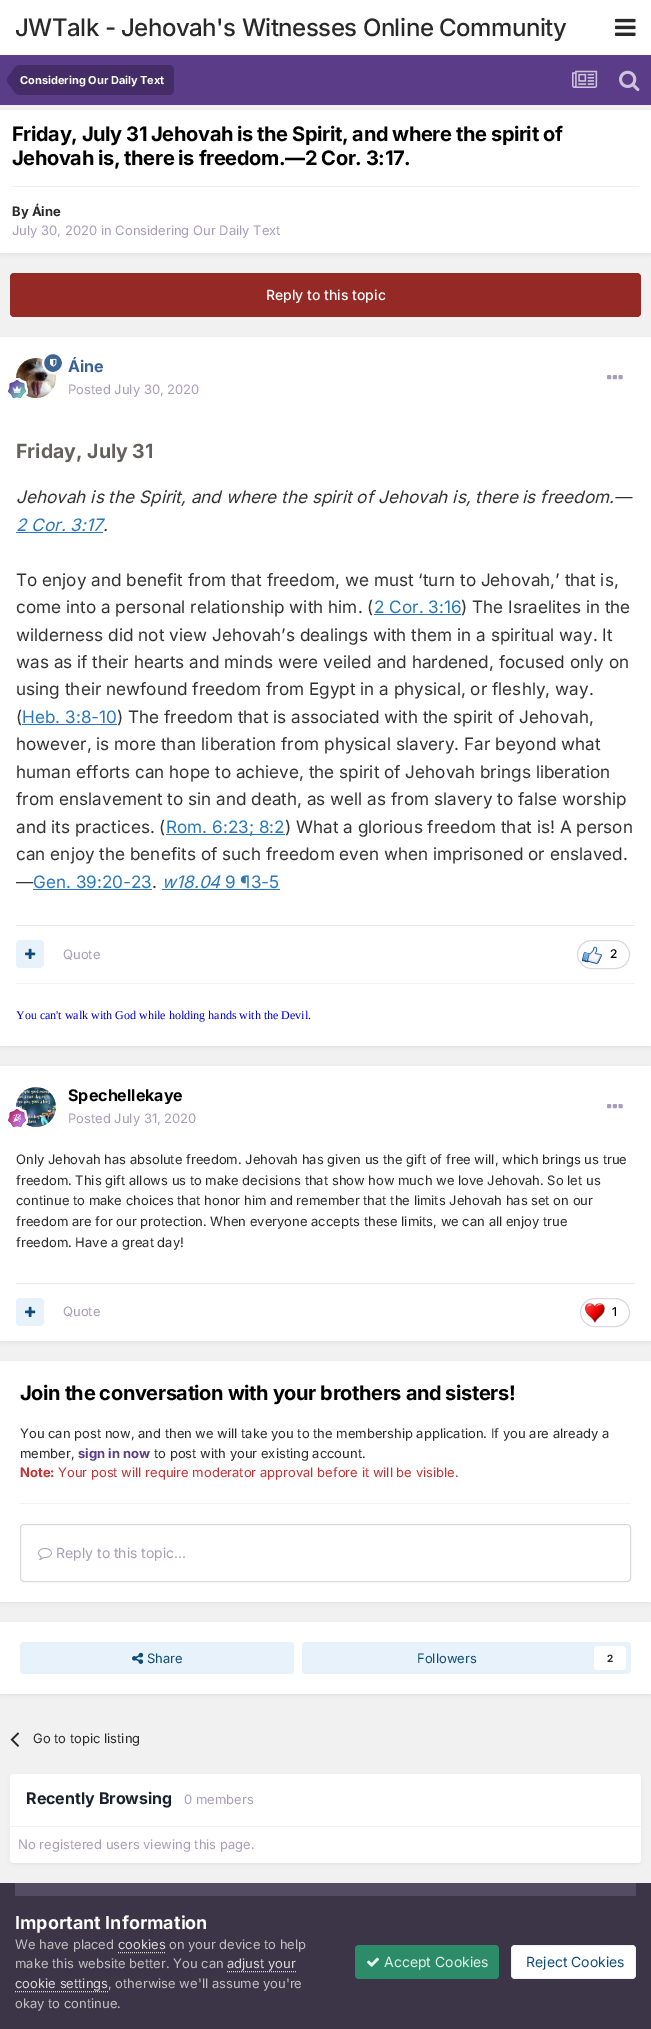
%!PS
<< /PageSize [651 2029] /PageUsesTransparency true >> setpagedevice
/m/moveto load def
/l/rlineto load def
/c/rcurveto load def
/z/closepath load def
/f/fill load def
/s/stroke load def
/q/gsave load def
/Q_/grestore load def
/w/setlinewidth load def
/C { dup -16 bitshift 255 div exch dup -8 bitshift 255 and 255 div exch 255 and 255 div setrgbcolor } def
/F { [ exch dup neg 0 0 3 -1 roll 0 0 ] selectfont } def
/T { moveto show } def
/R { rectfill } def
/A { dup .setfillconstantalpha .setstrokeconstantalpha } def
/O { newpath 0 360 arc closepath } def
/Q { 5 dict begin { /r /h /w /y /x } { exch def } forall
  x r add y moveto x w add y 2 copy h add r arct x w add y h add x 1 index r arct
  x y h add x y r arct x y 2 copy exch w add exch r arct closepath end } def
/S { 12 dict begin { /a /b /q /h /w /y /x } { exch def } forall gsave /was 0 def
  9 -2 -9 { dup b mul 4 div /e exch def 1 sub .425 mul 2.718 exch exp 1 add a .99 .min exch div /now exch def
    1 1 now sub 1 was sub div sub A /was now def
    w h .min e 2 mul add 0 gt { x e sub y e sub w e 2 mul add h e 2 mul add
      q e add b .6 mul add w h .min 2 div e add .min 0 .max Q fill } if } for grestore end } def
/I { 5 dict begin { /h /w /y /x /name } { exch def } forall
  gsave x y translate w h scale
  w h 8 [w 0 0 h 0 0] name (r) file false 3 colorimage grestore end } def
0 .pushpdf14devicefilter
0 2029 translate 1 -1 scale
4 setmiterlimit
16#F1F1F1 C
0 0 651 2029 R
16#FFFFFF C
0 0 651 55 R
/Inter-Medium 24 F
16#292929 C
15 36 m -.5 0 (JWTalk - Jehovah's Witnesses Online Community) ashow
(1.rgb) 615 18 21 18 I
16#5B3C88 C
0 55 651 50 R
16#442D66 C
20 65 m 149 0 l 3 0 5 2 5 5 c 0 20 l 0 3 -2 5 -5 5 c -149 0 l z f
20 80 m 0 15 l -4.5 0 -6.5 -4.5 -9 -8 c -1.5 -2 -4 -4 -4 -7 c z 20 80 m -13 0 l 0 -3 2.5 -5 4 -7 c 2.5 -3.5 4.5 -8 9 -8 c z f
/Inter-Bold 11 F
16#FFFFFF C
(Considering Our Daily Text) 20 84 T
(2.rgb) 572 70 26 18 I
(3.rgb) 619 70 21 22 I
16#3B3547 C
1 113 649 141 0 2 .1 S
16#FFFFFF C
0 110 651 143 R
/Inter-Bold 20 F
16#000000 C
12 141 m -.4 0 (Friday, July 31 Jehovah is the Spirit, and where the spirit of) ashow
12 165 m -.4 0 (Jehovah is, there is freedom.—2 Cor. 3:17.) ashow
16#EEEEEE C
12 186 627 1 R
/Inter-Bold 13 F
16#292929 C
(By Áine) 12 216 T
/Inter-Regular 13 F
16#A79DB9 C
(July 30, 2020 in Considering Our Daily Text) 12 235 T
16#942926 C
10 273 631 44 4 Q f
/Inter-Medium 14 F
16#FFFFFF C
(Reply to this topic) 266 300 T
16#3B3547 C
1 340 649 707 0 2 .1 S
16#FFFFFF C
0 337 651 709 R
(5.rgb) 16 358 40 40 I
16#3D6594 C
53 363 10 O q f Q_
16#FFFFFF C
2 w
s
(4.rgb) 50 358 7 9 I
(6.rgb) 8 378 20 20 I
q
68 357 36 18 rectclip
/Inter-Bold 16 F
16#3A5D95 C
(Áine) 68 372 T
Q_
/Inter-Regular 13 F
16#A79DB9 C
(Posted July 30, 2020) 68 394 T
(7.rgb) 607 375 16 5 I
/Inter-Bold 19.5 F
16#64605D C
(Friday, July 31) 16 458 T
/Inter-Italic 17.15 F
16#333333 C
(Jehovah is the Spirit, and where the spirit of Jehovah is, there is freedom.—) 16 503 T
16#2878BB C
(2 Cor. 3:17) 16 531 T
16 532 87 1 R
16#333333 C
(.) 103 531 T
/Inter-Regular 17.15 F
(To enjoy and benefit from that freedom, we must ‘turn to Jehovah,’ that is,) 16 586 T
(come into a personal relationship with him. \() 16 613 T
16#2878BB C
(2 Cor. 3:16) 374 613 T
374 614 87 1 R
16#333333 C
(\) The Israelites in the) 461 613 T
(wilderness did not view Jehovah’s dealings with them in a spiritual way. It) 16 641 T
(was as if their hearts and minds were veiled and hardened, focused only on) 16 668 T
(using their newfound freedom from Egypt in a physical, or fleshly, way.) 16 695 T
(\() 16 723 T
16#2878BB C
(Heb. 3:8-10) 22 723 T
22 724 95 1 R
16#333333 C
(\) The freedom that is associated with the spirit of Jehovah,) 117 723 T
(however, is more than liberation from physical slavery. Far beyond what) 16 750 T
(human efforts can hope to achieve, the spirit of Jehovah brings liberation) 16 778 T
(from enslavement to sin and death, as well as from slavery to false worship) 16 805 T
(and its practices. \() 16 833 T
16#2878BB C
166 834 119 1 R
(Rom. 6:23; 8:2) 166 833 T
16#333333 C
(\) What a glorious freedom that is! A person) 285 833 T
(can enjoy the benefits of such freedom even when imprisoned or enslaved.) 16 860 T
(—) 16 888 T
16#2878BB C
(Gen. 39:20-23) 33 888 T
33 889 119 1 R
/Inter-Italic 17.15 F
(w18.04) 162 888 T
162 889 118 1 R
/Inter-Regular 17.15 F
(9 ¶3-5) 225 888 T
16#333333 C
(.) 152 888 T
16#EAEAEA C
16 925 619 1 R
16#E8F2FA C
16 940 28 28 4 Q f
(8.rgb) 25 948 11 11 I
/Inter-Regular 13 F
16#A79DB9 C
(Quote) 63 959 T
16#DCD8E3 C
1 w
577.5 940.5 52 28 14 Q s
(9.rgb) 582 946 20 18 I
/Inter-Medium 12 F
16#000000 C
(2) 610 958 T
16#F2F0F5 C
16 983 619 1 R
/LiberationSerif-Regular 12 F
16#0000CD C
(You can't walk with God while holding hands with the Devil.) 16 1019 T
16#3B3547 C
1 1069 649 273 0 2 .1 S
16#FFFFFF C
0 1066 651 275 R
(10.rgb) 16 1087 40 40 I
(11.rgb) 8 1107 20 20 I
q
68 1086 115 18 rectclip
/Inter-Bold 16 F
16#000000 C
(Spechellekaye) 68 1101 T
Q_
/Inter-Regular 13 F
16#A79DB9 C
(Posted July 31, 2020) 68 1123 T
(7.rgb) 607 1104 16 5 I
16#292929 C
(Only Jehovah has absolute freedom. Jehovah has given us the gift of free will, which brings us true) 16 1164 T
(freedom. This gift allows us to make decisions that show how much we love Jehovah. So let us) 16 1185 T
(continue to make choices that honor him and remember that the limits Jehovah has set on our) 16 1205 T
(freedom are for our protection. When everyone accepts these limits, we can all enjoy true) 16 1226 T
(freedom. Have a great day!) 16 1247 T
16#EAEAEA C
16 1283 619 1 R
16#E8F2FA C
16 1298 28 28 4 Q f
(8.rgb) 25 1306 11 11 I
16#A79DB9 C
(Quote) 63 1316 T
16#DCD8E3 C
580.5 1298.5 49 28 14 Q s
(12.rgb) 585 1303 20 20 I
/Inter-Medium 12 F
16#000000 C
(1) 612 1316 T
16#3B3547 C
1 1364 649 239 0 2 .1 S
16#FFFFFF C
0 1361 651 241 R
16#F2F0F5 C
20 1503 611 1 R
/Inter-Bold 20 F
16#000000 C
20 1400 m -.4 0 (Join the conversation with your brothers and sisters!) ashow
/Inter-Regular 13 F
16#292929 C
(You can post now, and then we will take you to the membership application. If you are already a) 20 1438 T
(member,) 20 1458 T
/Inter-Bold 13 F
16#5B3C88 C
(sign in now) 78 1458 T
/Inter-Regular 13 F
16#292929 C
(to post with your existing account.) 154 1458 T
/Inter-Bold 13 F
16#C53030 C
(Note:) 20 1477 T
/Inter-Regular 13 F
(Your post will require moderator approval before it will be visible.) 58 1477 T
16#DCD8E3 C
20.5 1524.5 610 57 3.5 Q s
(13.rgb) 38 1548 14 12 I
/Inter-Regular 14 F
16#A79DB9 C
(Reply to this topic...) 56 1558 T
16#3B3547 C
1 1625 649 70 0 2 .1 S
16#FFFFFF C
0 1622 651 72 R
16#E8F2FA C
20 1642 274 32 4 Q f
(14.rgb) 132 1652 12 12 I
/Inter-Regular 13 F
16#0E4C79 C
(Share) 147 1663 T
16#E8F2FA C
302 1642 329 32 4 Q f
16#0E4C79 C
(Followers) 417 1663 T
16#FFFFFF C
594 1646 32 24 4 Q f
/Inter-Bold 10 F
16#292929 C
(2) 607 1662 T
(15.rgb) 10 1732 10 15 I
/Inter-Regular 13 F
(Go to topic listing) 33 1743 T
16#3B3547 C
11 1777 629 87 3 2 .1 S
16#FFFFFF C
10 1774 631 89 4 Q f
14 1774 m 623 0 l 2 0 4 2 4 4 c 0 49 l -631 0 l 0 -49 l 0 -2 2 -4 4 -4 c z f
16#F2F0F5 C
10 1826 631 1 R
/Inter-Bold 16 F
16#1A202C C
(Recently Browsing) 26 1804 T
/Inter-Regular 13 F
16#A79DB9 C
(0 members) 184 1804 T
(No registered users viewing this page.) 18 1849 T
16#3B3547 C
0 1883 651 146 R
16#544C63 C
15 1883 621 13 R
/Inter-Bold 18 F
16#FFFFFF C
(Important Information) 15 1929 T
/Inter-Regular 13 F
16#C0C0C0 C
(We have placed) 15 1949 T
16#DADADA C
(cookies) 118 1949 T
[1 1] 0 setdash
118 1952.5 m 47 0 l s
16#C0C0C0 C
(on your device to help) 169 1949 T
(make this website better. You can) 15 1968 T
16#DADADA C
(adjust your) 227 1968 T
227 1971.5 m 69 0 l s
(cookie settings) 15 1988 T
15 1991.5 m 93 0 l s
16#C0C0C0 C
(, otherwise we'll assume you're) 108 1988 T
(okay to continue.) 15 2008 T
16#2C8C69 C
355 1945 144 34 4 Q f
(16.rgb) 367 1957 12 10 I
/Inter-Regular 14 F
16#E3F3EC C
(Accept Cookies) 384 1967 T
16#FFFFFF C
511 1945 125 34 4 Q f
0.07 A
16#0E4C79 C
[] 0 setdash
511.5 1945.5 124 33 3.5 Q s
1 A
(Reject Cookies) 526 1967 T
.poppdf14devicefilter showpage
